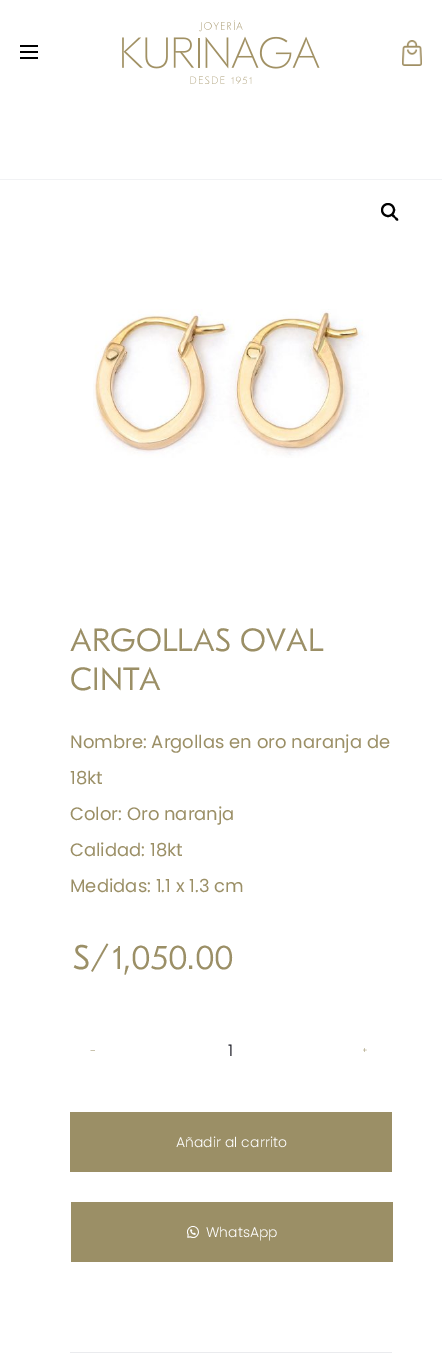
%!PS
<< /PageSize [442 1353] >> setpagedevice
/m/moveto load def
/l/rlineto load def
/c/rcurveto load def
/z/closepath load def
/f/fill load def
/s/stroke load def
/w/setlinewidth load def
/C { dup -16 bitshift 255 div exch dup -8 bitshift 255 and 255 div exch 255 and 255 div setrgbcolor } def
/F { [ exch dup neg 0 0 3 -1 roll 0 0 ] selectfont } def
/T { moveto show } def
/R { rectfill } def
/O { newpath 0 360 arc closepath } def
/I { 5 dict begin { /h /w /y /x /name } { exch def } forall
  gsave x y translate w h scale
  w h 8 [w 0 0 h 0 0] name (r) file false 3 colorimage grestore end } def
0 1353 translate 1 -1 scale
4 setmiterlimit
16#FFFFFF C
0 0 442 1353 R
16#F1F2F4 C
0 179 442 1 R
16#000000 C
20 51 18 2 R
20 45 18 2 R
20 57 18 2 R
(1.rgb) 122 20 198 64 I
(2.rgb) 402 40 20 26 I
2 w
388 210 6 O s
392 214.5 m 1.5 -1 3 1.5 3.5 2.5 c 1 .5 3.5 2 2.5 3.5 c -1.5 1 -3 -1.5 -3.5 -2.5 c -1 -.5 -3.5 -2 -2.5 -3.5 c z f
(3.rgb) 93 309 276 149 I
/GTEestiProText-Light 32 F
16#9B8F66 C
(ARGOLLAS OVAL) 70 651 T
(CINTA) 70 690 T
/Poppins-Regular 18 F
(Nombre: Argollas en oro naranja de) 70 748 T
(18kt) 70 784 T
(Color: Oro naranja) 70 820 T
(Calidad: 18kt) 70 856 T
(Medidas: 1.1 x 1.3 cm) 70 892 T
/GTEestiProText-Light 34 F
(S/) 73 969 T
(1,050.00) 112 969 T
95 1050 m -4.5 0 l 0 .5 l 4.5 0 l f
/Poppins-Regular 16 F
16#23232C C
(1) 228 1056 T
(4.rgb) 363 1048 4 4 I
16#9B8F66 C
70 1112 322 60 R
/Poppins-Light 14 F
16#FFFFFF C
(Añadir al carrito) 176 1147 T
16#9B8F66 C
71 1202 322 60 R
(5.rgb) 187 1226 12 12 I
16#FFFFFF C
(WhatsApp) 206 1237 T
16#EAEBEE C
70 1352 322 1 R
showpage
